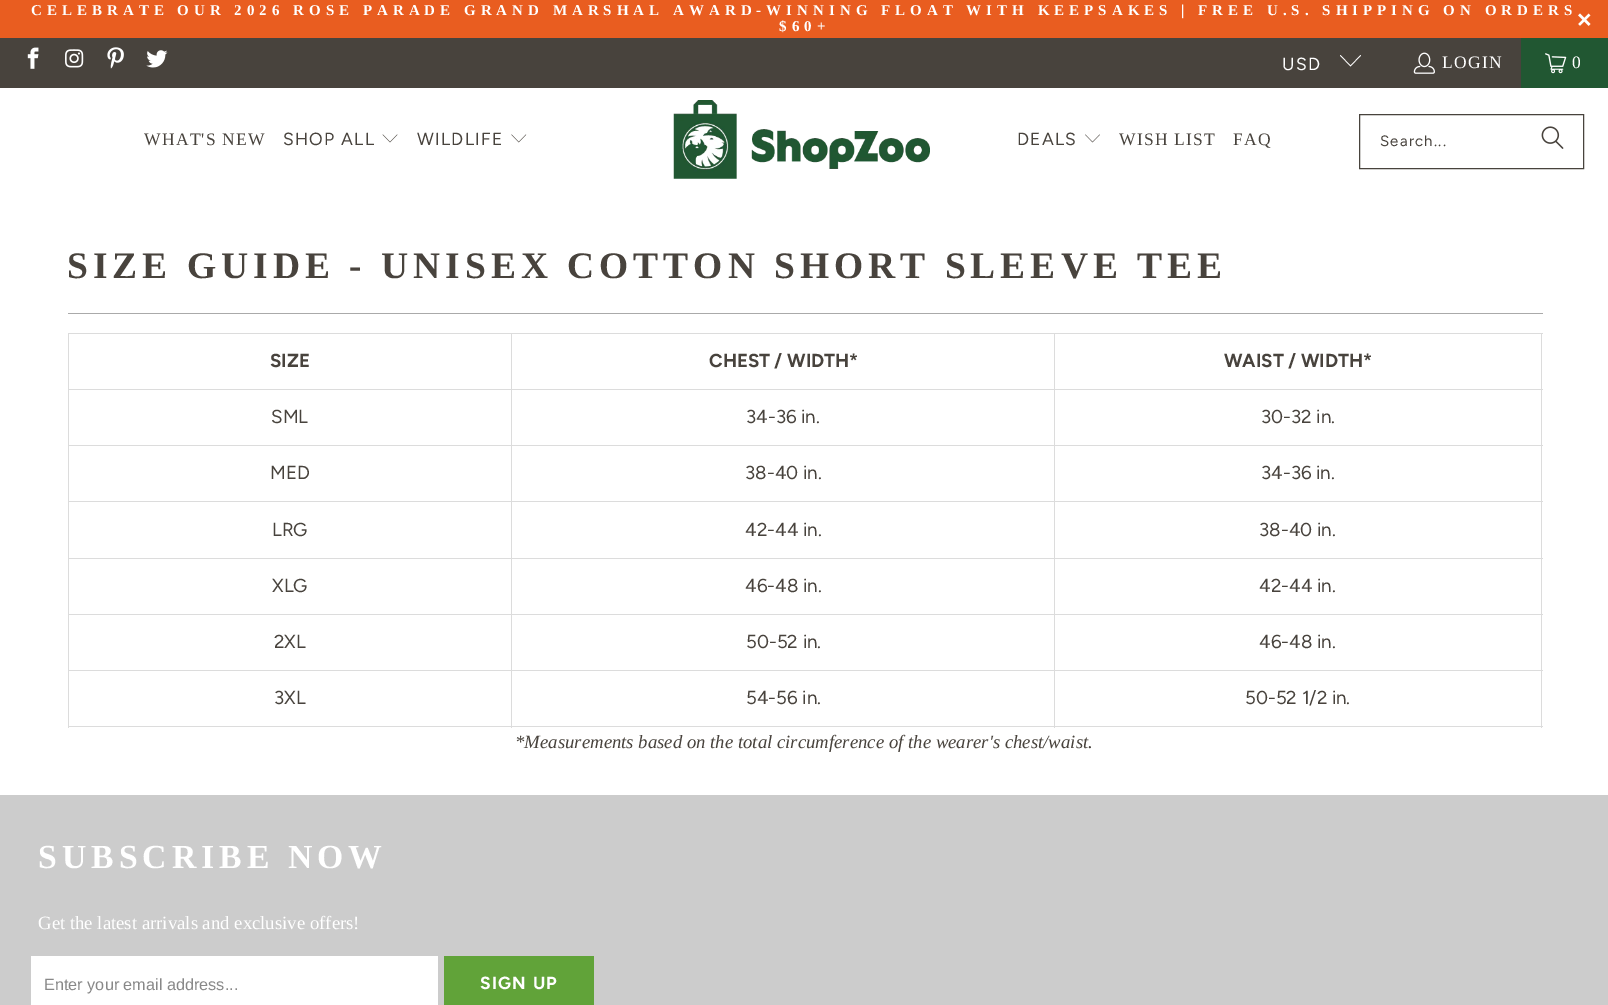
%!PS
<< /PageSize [1608 1005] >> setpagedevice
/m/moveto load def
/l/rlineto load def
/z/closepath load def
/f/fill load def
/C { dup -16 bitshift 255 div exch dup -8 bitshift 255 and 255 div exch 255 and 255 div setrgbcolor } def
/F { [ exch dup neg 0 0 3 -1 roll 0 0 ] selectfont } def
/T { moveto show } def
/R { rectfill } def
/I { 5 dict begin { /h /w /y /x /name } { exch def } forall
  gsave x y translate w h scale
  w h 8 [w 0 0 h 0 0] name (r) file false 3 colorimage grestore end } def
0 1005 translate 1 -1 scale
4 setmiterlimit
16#FFFFFF C
0 0 1608 1005 R
16#E95D20 C
0 0 1608 38 R
/LiberationSerif-Bold 15 F
16#FFFFFF C
31 15 m 5 0 (CELEBRATE OUR 2026 ROSE PARADE GRAND MARSHAL AWARD-WINNING FLOAT WITH KEEPSAKES) ashow
1181 15 m 5 0 (| FREE U.S. SHIPPING ON ORDERS) ashow
779 31 m 5 0 ($60+) ashow
/LiberationSans-Bold 25 F
1577 28 m 5 0 (×) ashow
16#48433D C
0 38 1521 50 R
(1.rgb) 27 47 12 22 I
(2.rgb) 65 49 19 19 I
(3.rgb) 107 47 17 22 I
(4.rgb) 146 50 22 18 I
/Figtree-Regular 17.5 F
16#FFFFFF C
1282 70 m 1.25 0 (USD) ashow
1350.5 66.5 m -10.5 -11 l .5 -.5 l 10 10.5 l 10 -10.5 l .5 .5 l z f
(5.rgb) 1413 52 22 22 I
/LiberationSerif-Regular 17.5 F
1442 68 m 1.25 0 (LOGIN) ashow
16#215732 C
1521 38 87 50 R
(6.rgb) 1545 53 22 21 I
16#FFFFFF C
1572 68 m 1.25 0 (0) ashow
16#48433D C
144 145 m 1.25 0 (WHAT'S NEW) ashow
/Figtree-Regular 17.5 F
283 145 m 1.25 0 (SHOP ALL) ashow
(7.rgb) 382 134 16 9 I
417 145 m 1.25 0 (WILDLIFE) ashow
(8.rgb) 511 134 16 9 I
(9.rgb) 673 100 257 79 I
1017 145 m 1.25 0 (DEALS) ashow
(10.rgb) 1085 134 15 9 I
/LiberationSerif-Regular 17.5 F
1119 145 m 1.25 0 (WISH LIST) ashow
1233 145 m 1.25 0 (FAQ) ashow
1359.5 114.5 224 54 rectstroke
/Figtree-Regular 15 F
1380 146 m 1.25 0 (Search...) ashow
(11.rgb) 1541 126 23 23 I
/LiberationSerif-Bold 37.5 F
67 278 m 5 0 (SIZE GUIDE - UNISEX COTTON SHORT SLEEVE TEE) ashow
16#AAAAAA C
68 313 1475 1 R
16#DCDCDC C
68 333 1475 1 R
68 389 1475 1 R
/Figtree-Bold 18.75 F
16#48433D C
(SIZE) 270 367 T
(CHEST / WIDTH*) 709 367 T
(WAIST / WIDTH*) 1224 367 T
16#DCDCDC C
68 445 1475 1 R
/Figtree-Regular 18.75 F
16#48433D C
(SML) 271 423 T
(34-36 in.) 746 423 T
(30-32 in.) 1261 423 T
16#DCDCDC C
68 501 1475 1 R
16#48433D C
(MED) 270 479 T
(38-40 in.) 745 479 T
(34-36 in.) 1261 479 T
16#DCDCDC C
68 558 1475 1 R
16#48433D C
(LRG) 272 536 T
(42-44 in.) 745 536 T
(38-40 in.) 1259 536 T
16#DCDCDC C
68 614 1475 1 R
16#48433D C
(XLG) 272 592 T
(46-48 in.) 745 592 T
(42-44 in.) 1259 592 T
16#DCDCDC C
68 670 1475 1 R
16#48433D C
(2XL) 274 648 T
(50-52 in.) 746 648 T
(46-48 in.) 1259 648 T
16#DCDCDC C
68 726 1475 1 R
511 333 1 395 R
68 333 1 395 R
16#48433D C
(3XL) 274 704 T
16#DCDCDC C
1054 333 1 395 R
16#48433D C
(54-56 in.) 746 704 T
16#DCDCDC C
1541 333 1 395 R
16#48433D C
(50-52 1/2 in.) 1245 704 T
/LiberationSerif-Italic 18.75 F
(*Measurements based on the total circumference of the wearer's chest/waist.) 515 748 T
16#CCCCCC C
0 795 1608 210 R
/LiberationSerif-Bold 33.75 F
16#FFFFFF C
38 868 m 5 0 (SUBSCRIBE NOW) ashow
/LiberationSerif-Regular 18.75 F
(Get the latest arrivals and exclusive offers!) 38 929 T
31 956 407 49 R
/LiberationSans-Regular 16.25 F
16#888888 C
(Enter your email address...) 44 990 T
16#61A339 C
444 956 150 49 R
/Figtree-Bold 17.5 F
16#FFFFFF C
480 989 m 1.25 0 (SIGN UP) ashow
showpage
